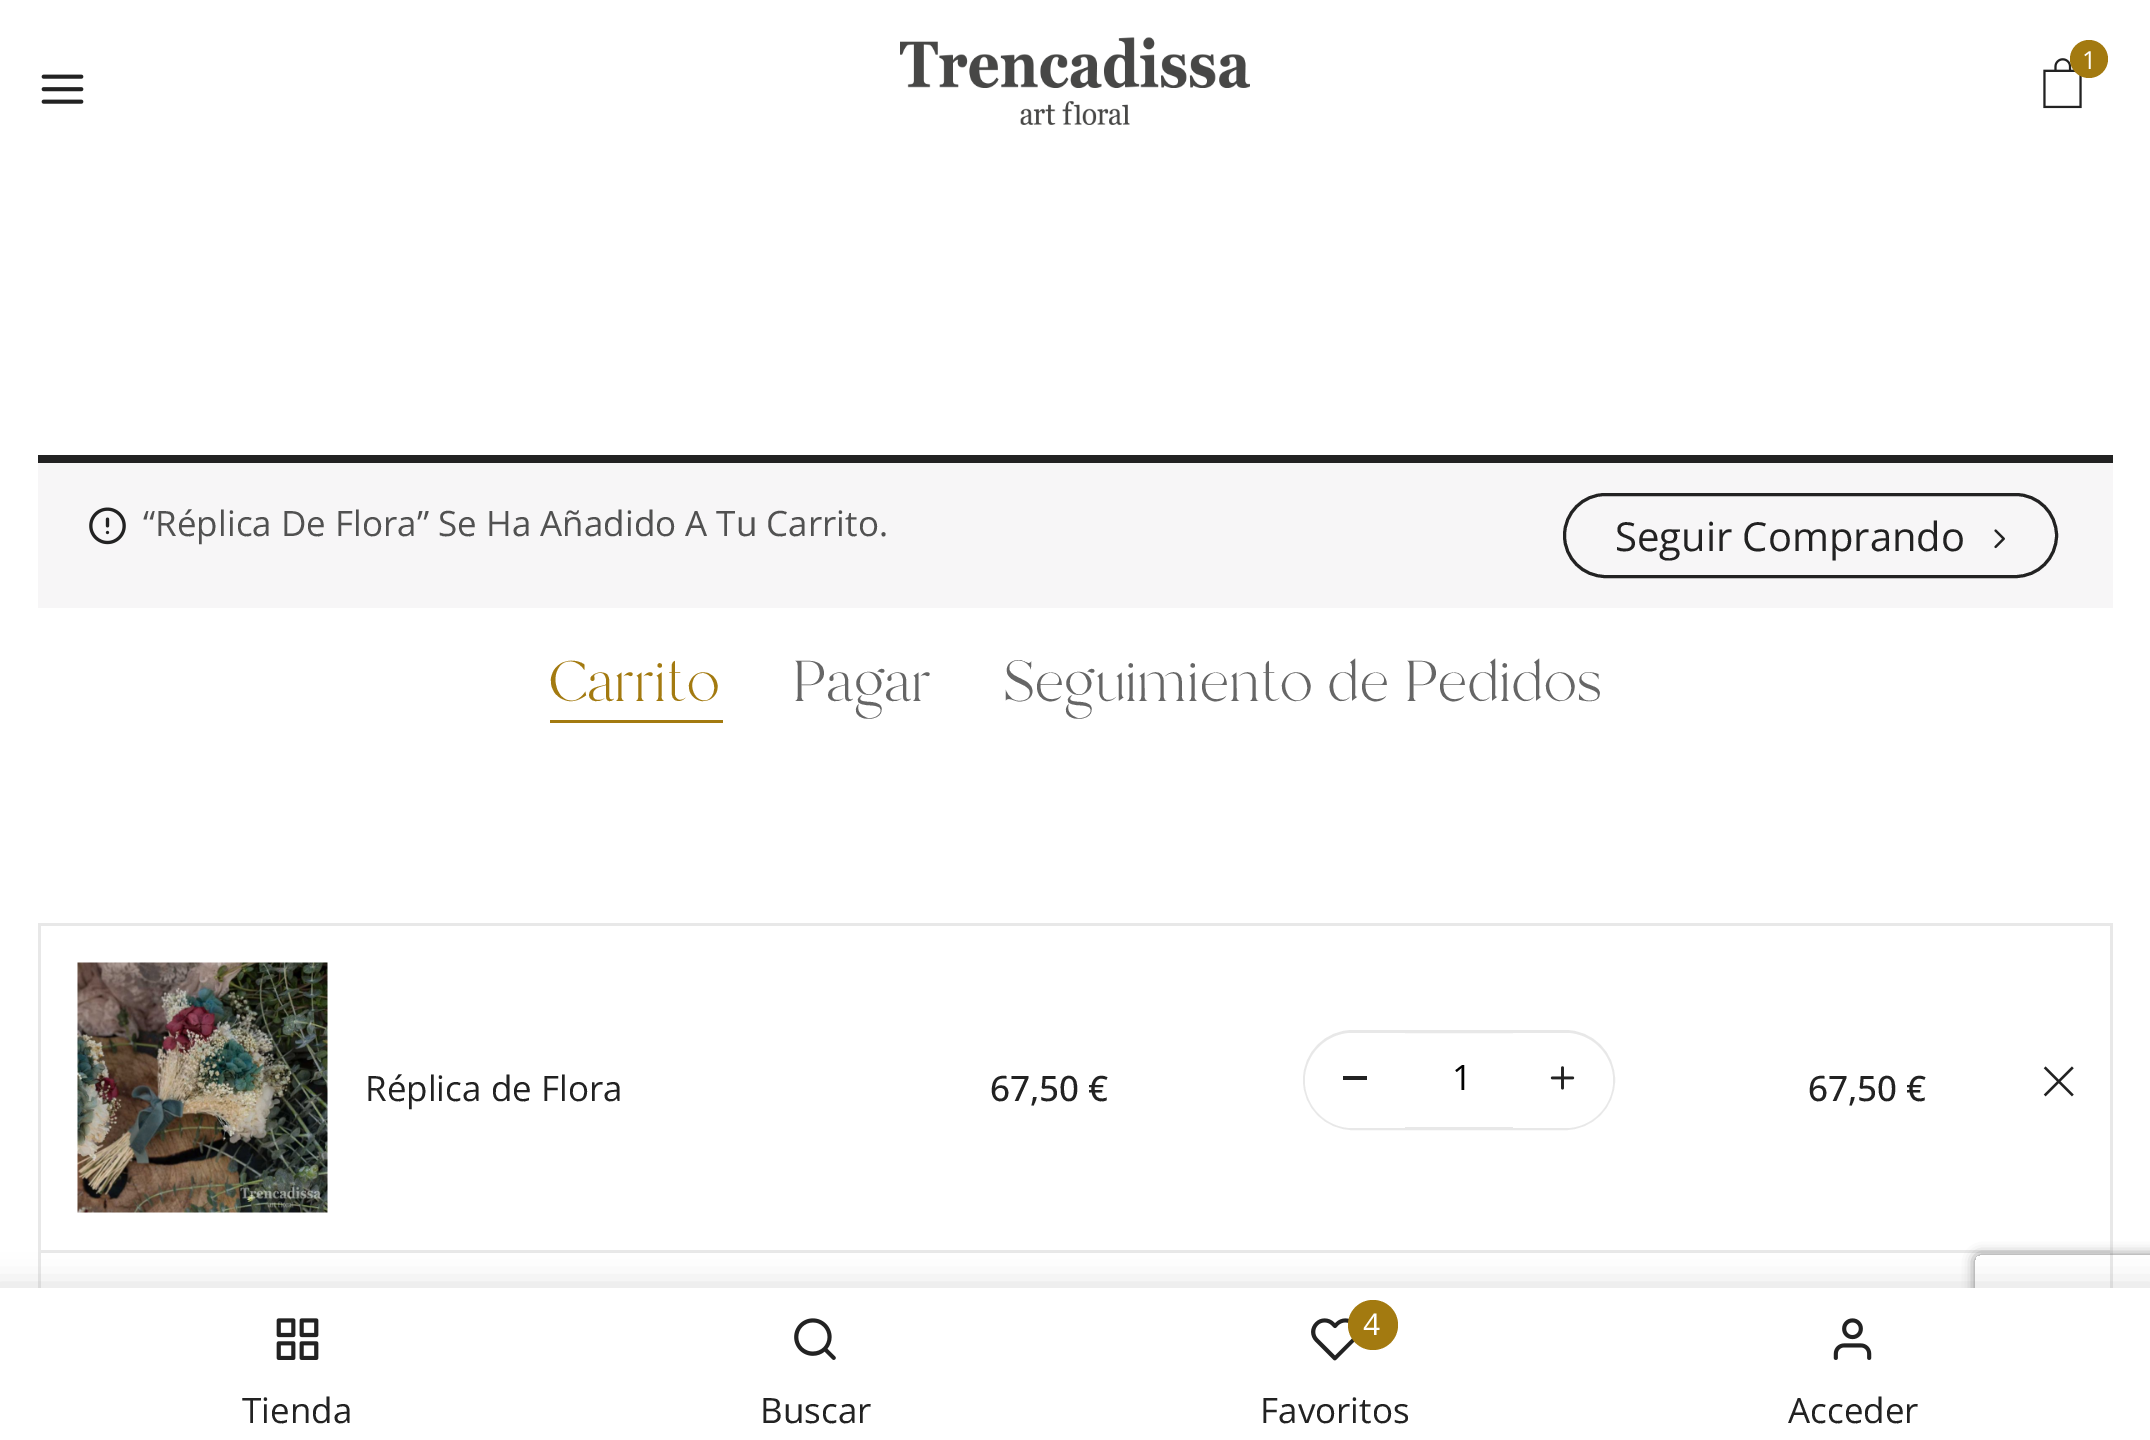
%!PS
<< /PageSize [2150 1440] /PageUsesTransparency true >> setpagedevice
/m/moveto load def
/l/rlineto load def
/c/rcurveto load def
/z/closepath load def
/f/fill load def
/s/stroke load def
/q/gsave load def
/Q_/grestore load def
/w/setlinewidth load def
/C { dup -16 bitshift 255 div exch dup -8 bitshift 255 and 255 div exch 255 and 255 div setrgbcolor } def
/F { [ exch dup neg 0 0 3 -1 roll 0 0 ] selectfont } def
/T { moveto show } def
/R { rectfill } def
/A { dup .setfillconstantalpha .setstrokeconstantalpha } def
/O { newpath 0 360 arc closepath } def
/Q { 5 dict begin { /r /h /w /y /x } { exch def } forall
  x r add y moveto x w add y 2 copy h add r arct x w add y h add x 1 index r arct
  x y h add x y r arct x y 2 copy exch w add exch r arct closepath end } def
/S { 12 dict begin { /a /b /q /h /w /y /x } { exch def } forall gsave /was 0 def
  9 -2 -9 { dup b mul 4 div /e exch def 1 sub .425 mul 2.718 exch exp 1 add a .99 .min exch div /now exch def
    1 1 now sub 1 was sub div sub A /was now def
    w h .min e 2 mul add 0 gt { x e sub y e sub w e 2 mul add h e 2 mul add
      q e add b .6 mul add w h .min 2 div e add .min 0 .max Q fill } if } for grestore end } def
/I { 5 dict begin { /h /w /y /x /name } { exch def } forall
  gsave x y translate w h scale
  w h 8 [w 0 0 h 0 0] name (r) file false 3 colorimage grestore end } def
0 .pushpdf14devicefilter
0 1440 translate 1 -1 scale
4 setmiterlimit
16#FFFFFF C
0 0 2150 1440 R
(1.rgb) 900 37 350 88 I
(2.rgb) 2043 58 39 51 I
16#A37A10 C
2089 59 19 O f
/OpenSans-Regular 25 F
16#FFFFFF C
(1) 2082 69 T
(3.rgb) 41 74 43 30 I
16#E8E8E8 C
38 923 2075 3 R
2110 923 3 365 R
38 923 3 365 R
38 1250 2075 3 R
16#8F8F8F C
-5 1285 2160 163 0 15 .3 S
q
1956 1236 m 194 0 l 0 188 l -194 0 l z 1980 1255 m 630 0 l 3 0 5 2 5 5 c 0 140 l 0 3 -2 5 -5 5 c -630 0 l -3 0 -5 -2 -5 -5 c 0 -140 l 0 -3 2 -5 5 -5 c z eoclip newpath
16#808080 C
1975 1255 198 150 5 6 1 S
Q_
16#FFFFFF C
0 1288 2150 152 R
(4.rgb) 276 1318 43 42 I
/OpenSans-Regular 35 F
16#222222 C
(Tienda) 242 1423 T
(5.rgb) 794 1318 42 42 I
(Buscar) 760 1423 T
(6.rgb) 1311 1318 44 43 I
16#A37A10 C
1373 1325 25 O f
/OpenSans-Regular 30 F
16#FFFFFF C
(4) 1363 1335 T
/OpenSans-Regular 35 F
16#222222 C
(Favoritos) 1260 1423 T
(7.rgb) 1833 1318 39 42 I
(Acceder) 1788 1423 T
16#F7F6F7 C
38 463 2075 145 R
16#222222 C
38 455 2075 8 R
(8.rgb) 89 507 37 38 I
16#515151 C
(“Réplica De Flora” Se Ha Añadido A Tu Carrito.) 143 536 T
16#222222 C
3 w
1564.5 494.5 492 82 41 Q s
/OpenSans-Regular 40 F
(Seguir Comprando) 1615 551 T
(9.rgb) 1994 529 11 20 I
/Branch-Regular 57.5 F
16#A37A10 C
(Carrito) 548 701 T
550 720 173 3 R
16#666666 C
(Pagar) 792 701 T
(Seguimiento de Pedidos) 1003 701 T
(10.rgb) 77 962 251 251 I
/OpenSans-Regular 35 F
16#222222 C
(Réplica de Flora) 365 1101 T
/OpenSans-Medium 35 F
(67,50 €) 990 1101 T
16#E8E8E8 C
1304.5 1031.5 309 97 48.5 Q s
16#FFFFFF C
1352.5 1033 m 52.5 0 l 0 95 l -52.5 0 l -26 0 -47.5 -21.5 -47.5 -47.5 c 0 -26 21.5 -47.5 47.5 -47.5 c z f
16#222222 C
1343 1076 24 4 R
/OpenSans-Regular 35 F
16#000000 C
(1) 1452 1090 T
16#FFFFFF C
1513 1033 m 52.5 0 l 26 0 47.5 21.5 47.5 47.5 c 0 26 -21.5 47.5 -47.5 47.5 c -52.5 0 l z f
(11.rgb) 1550 1066 25 24 I
/OpenSans-Medium 35 F
16#222222 C
(67,50 €) 1808 1101 T
(12.rgb) 2043 1066 31 31 I
.poppdf14devicefilter showpage
